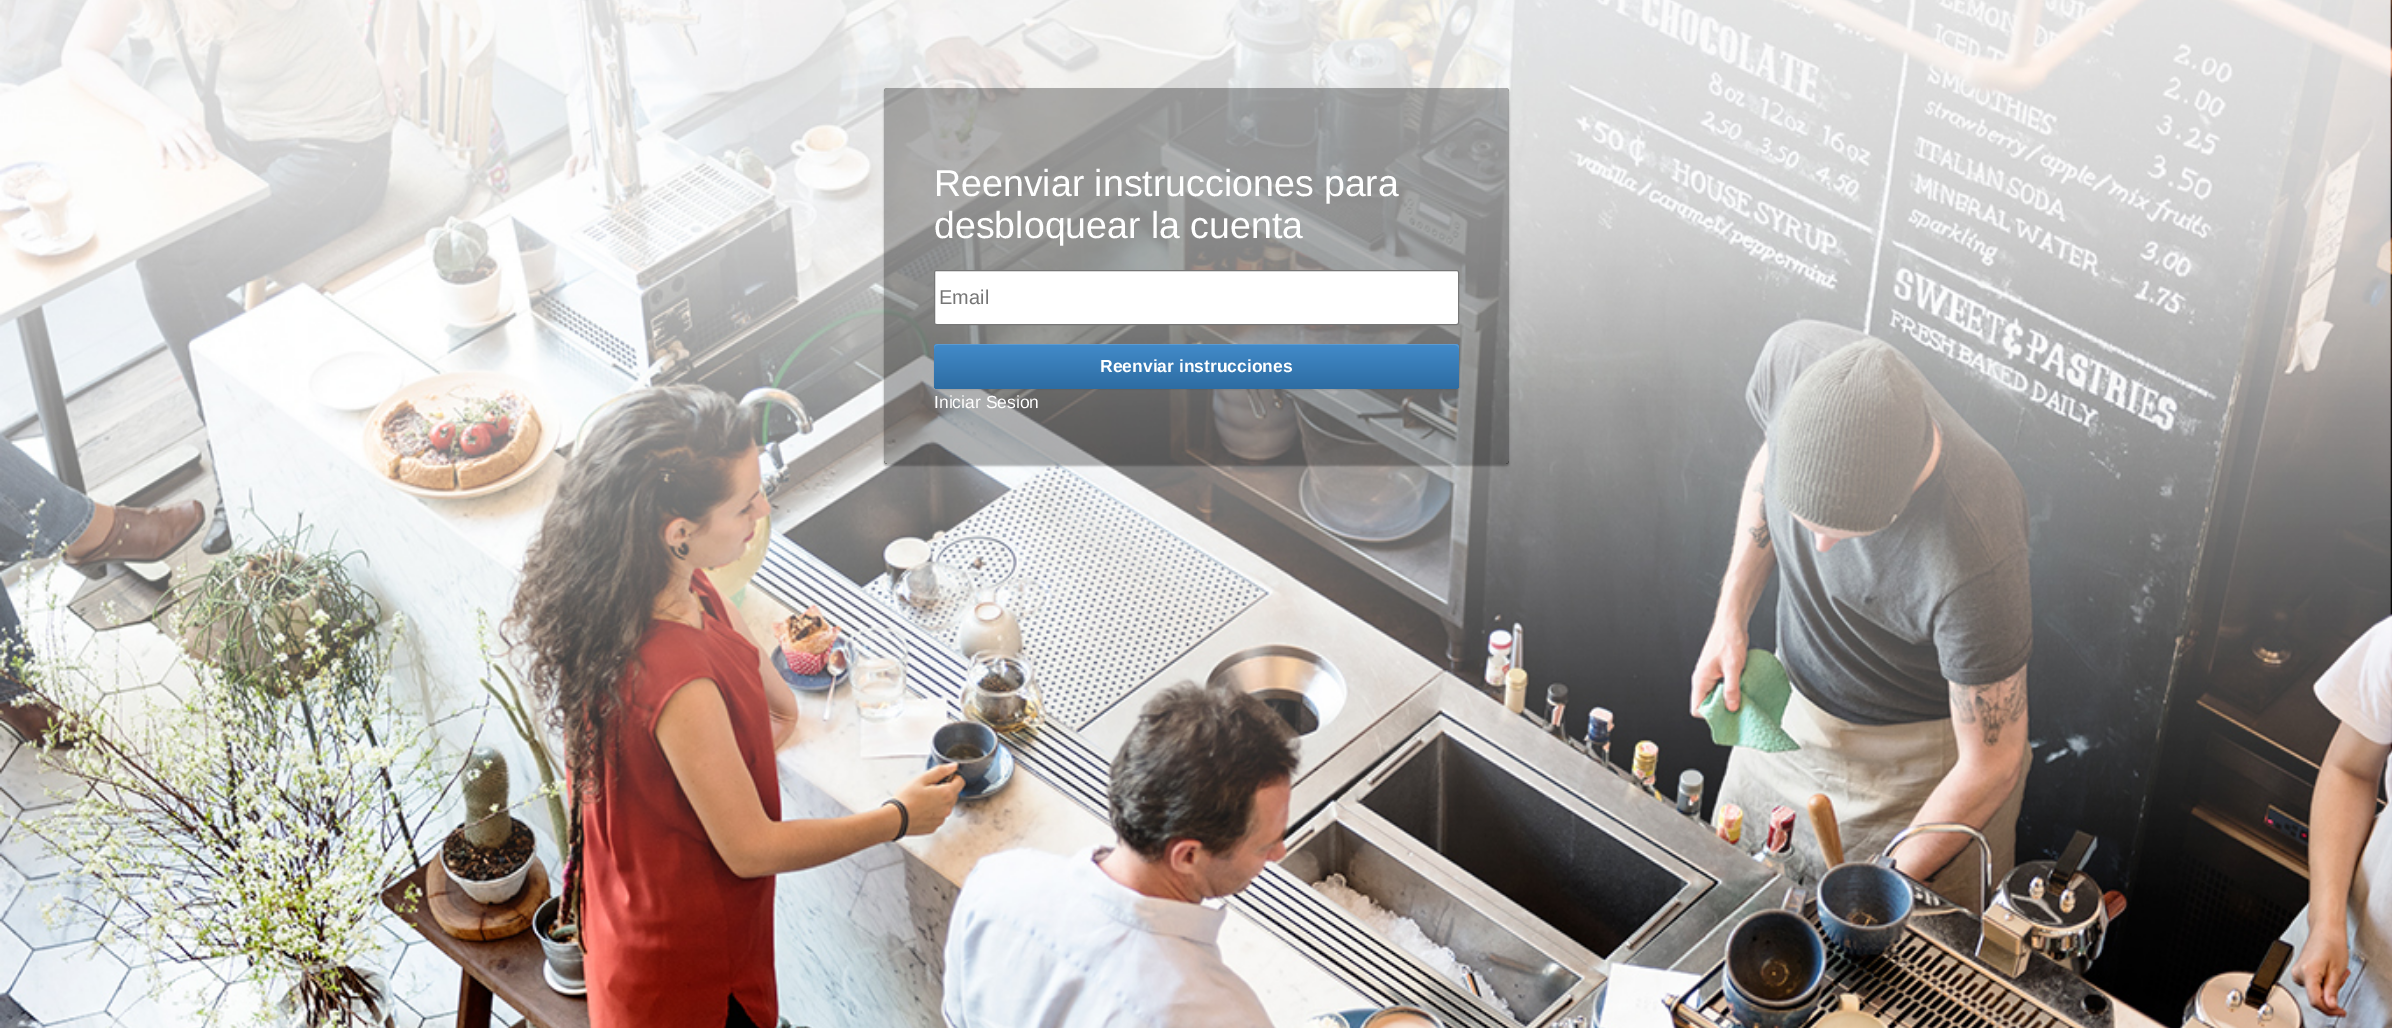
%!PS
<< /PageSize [2392 1028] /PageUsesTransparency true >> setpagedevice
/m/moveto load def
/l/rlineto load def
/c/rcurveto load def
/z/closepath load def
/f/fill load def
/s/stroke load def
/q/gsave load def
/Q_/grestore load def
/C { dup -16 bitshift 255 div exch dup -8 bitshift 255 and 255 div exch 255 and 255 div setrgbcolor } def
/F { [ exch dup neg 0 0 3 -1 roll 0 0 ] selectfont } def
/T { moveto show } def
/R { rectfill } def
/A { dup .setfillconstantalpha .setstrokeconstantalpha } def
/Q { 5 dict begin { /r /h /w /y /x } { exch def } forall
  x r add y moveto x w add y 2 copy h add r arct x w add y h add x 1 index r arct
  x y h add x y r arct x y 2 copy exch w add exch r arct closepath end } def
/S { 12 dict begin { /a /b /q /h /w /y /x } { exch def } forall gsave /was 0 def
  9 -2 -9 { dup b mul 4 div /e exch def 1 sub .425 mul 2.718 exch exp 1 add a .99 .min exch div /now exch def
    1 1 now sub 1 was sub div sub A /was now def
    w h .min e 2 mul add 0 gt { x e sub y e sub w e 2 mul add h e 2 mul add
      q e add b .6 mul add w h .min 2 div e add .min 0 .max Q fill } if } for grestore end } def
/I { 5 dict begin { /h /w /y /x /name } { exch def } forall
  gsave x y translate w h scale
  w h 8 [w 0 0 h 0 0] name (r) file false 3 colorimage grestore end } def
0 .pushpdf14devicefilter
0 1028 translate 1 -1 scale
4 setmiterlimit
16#FFFFFF C
0 0 2392 1028 R
(1.rgb) 0 0 2392 1028 I
q
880 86 m 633 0 l 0 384 l -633 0 l z 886.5 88 m 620 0 l 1.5 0 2.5 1 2.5 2.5 c 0 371 l 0 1.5 -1 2.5 -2.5 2.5 c -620 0 l -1.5 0 -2.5 -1 -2.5 -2.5 c 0 -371 l 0 -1.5 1 -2.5 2.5 -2.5 c z eoclip newpath
16#000000 C
884 90 625 376 2.5 1 .3 S
Q_
0.3 A
16#000000 C
884 88 625 376 2.5 Q f
/LiberationSans-Regular 37.5 F
1 A
16#FFFFFF C
(Reenviar instrucciones para) 934 196 T
(desbloquear la cuenta) 934 238 T
934.5 270.5 524 54 2 Q q f Q_
16#767676 C
s
/LiberationSans-Regular 20 F
16#757575 C
(Email) 939 304 T
16#000000 C
934 345 525 45 4 .5 .07 S
q 934 344 525 45 4 Q clip newpath
<< /ShadingType 2 /ColorSpace /DeviceRGB /Coords [1196 344 1196 389] /Extend [true true] /Function << /FunctionType 2 /Domain [0 1] /C0 [.259 .545 .792] /C1 [.176 .424 .635] /N 1 >> >> shfill Q_
0.15 A
16#FFFFFF C
938 345 m 517 0 l 2 0 4 2 4 4 c 0 -1 l 0 -2 -2 -4 -4 -4 c -517 0 l -2 0 -4 2 -4 4 c 0 1 l 0 -2 1 -4 4 -4 c z f
/LiberationSans-Bold 17.5 F
1 A
(Reenviar instrucciones) 1100 372 T
/LiberationSans-Regular 17.5 F
(Iniciar Sesion) 934 408 T
.poppdf14devicefilter showpage
